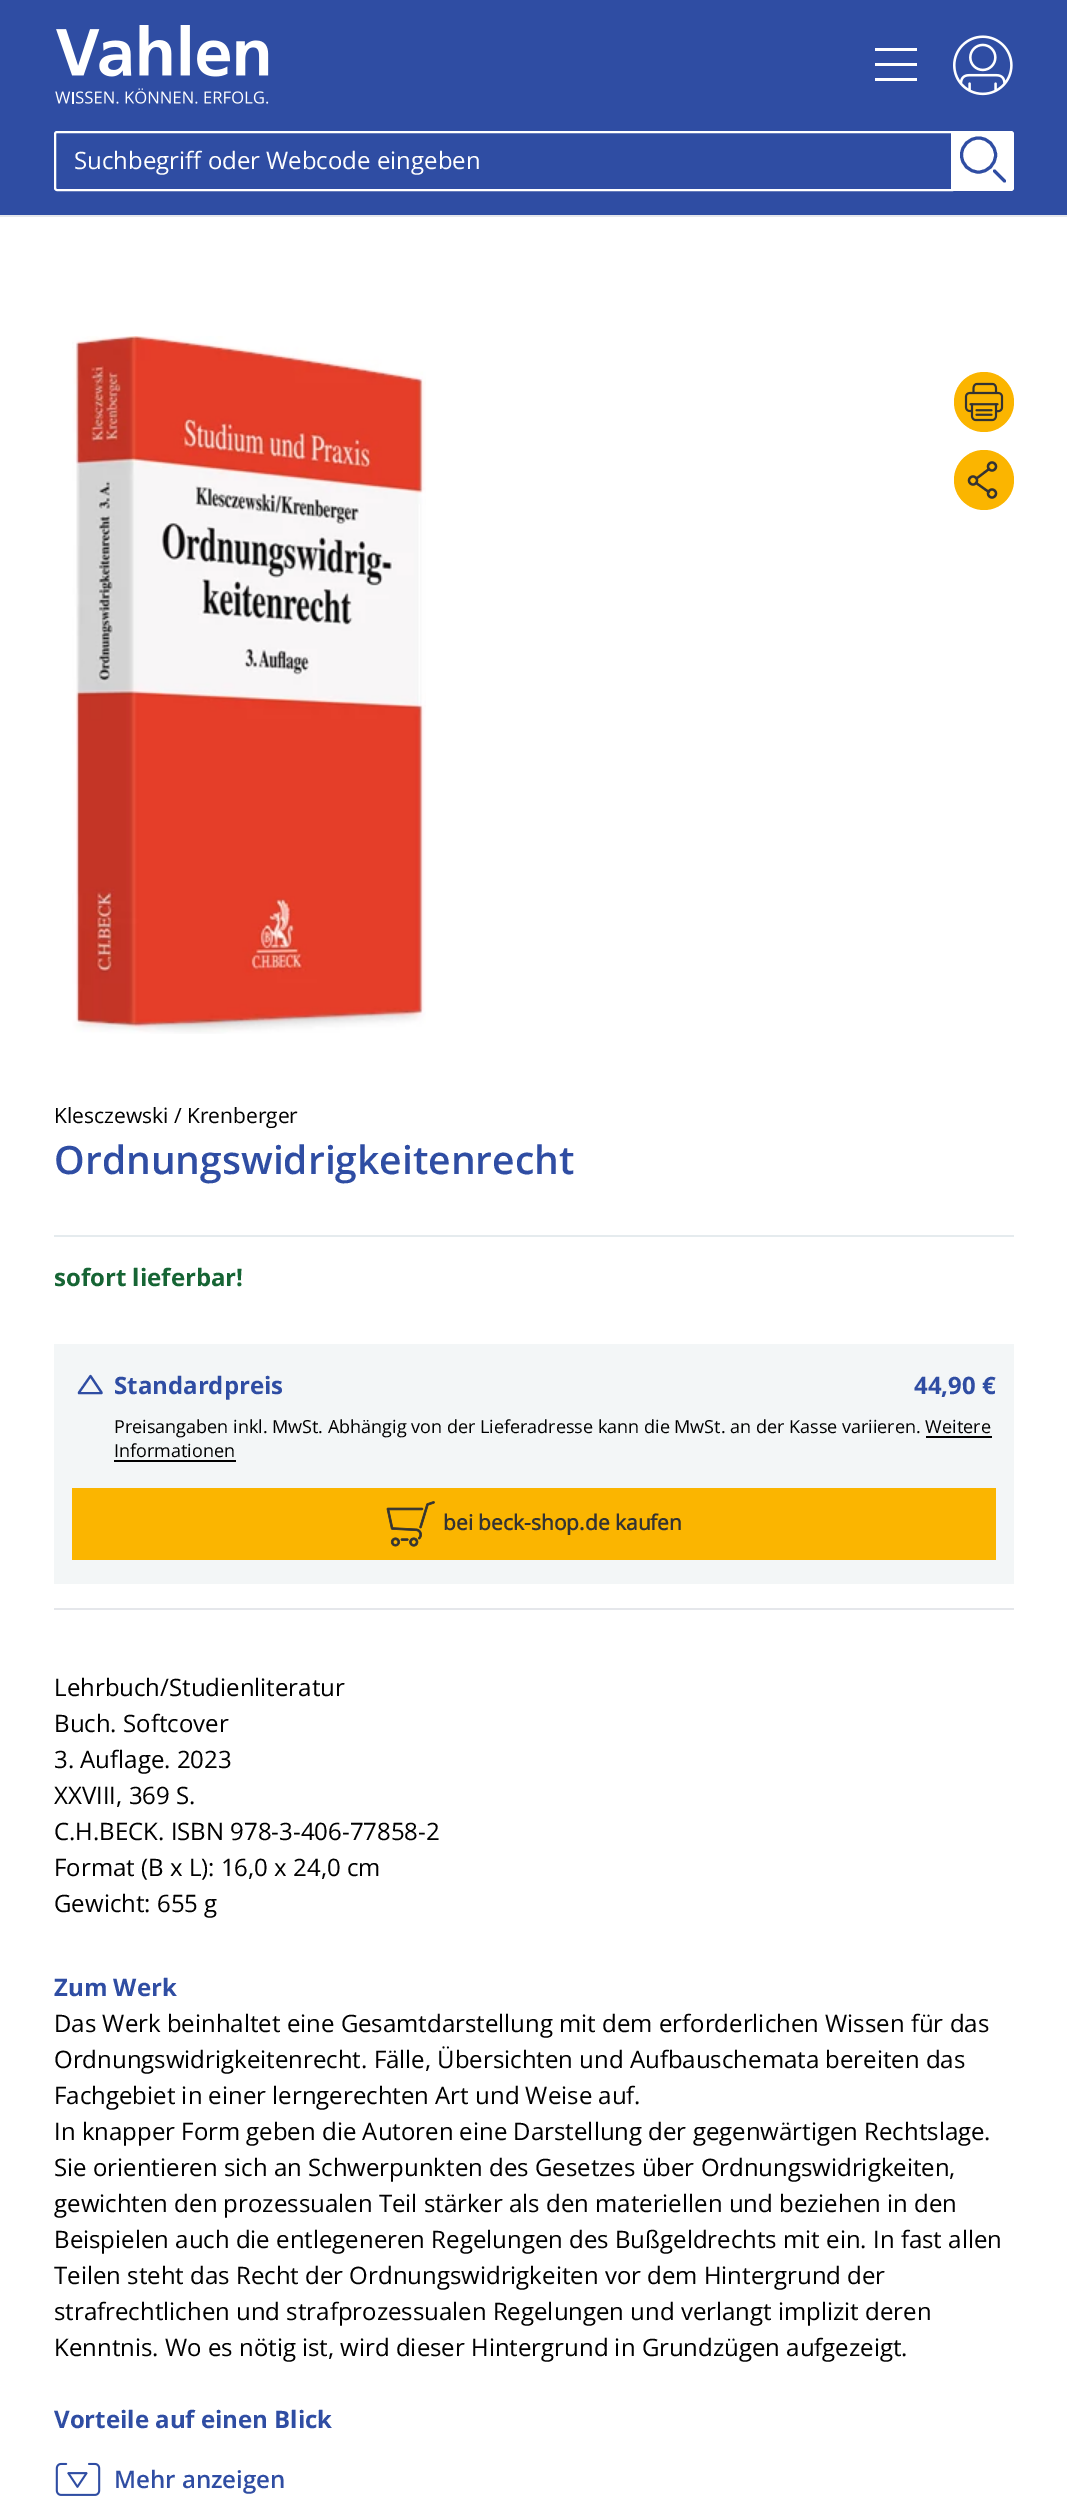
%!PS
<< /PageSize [1067 2500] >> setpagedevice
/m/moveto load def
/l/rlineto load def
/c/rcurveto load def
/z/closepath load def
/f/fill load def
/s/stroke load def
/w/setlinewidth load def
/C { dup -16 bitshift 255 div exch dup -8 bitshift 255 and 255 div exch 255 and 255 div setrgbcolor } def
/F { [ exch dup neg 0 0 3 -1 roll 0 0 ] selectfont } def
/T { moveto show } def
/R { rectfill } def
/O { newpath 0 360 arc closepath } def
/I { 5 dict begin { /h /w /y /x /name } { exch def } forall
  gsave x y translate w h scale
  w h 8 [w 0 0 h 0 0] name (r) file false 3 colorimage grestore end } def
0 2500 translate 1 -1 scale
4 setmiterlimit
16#FFFFFF C
0 0 1067 2500 R
16#2F4DA3 C
0 0 1067 215 R
(1.rgb) 55 25 214 79 I
16#FFFFFF C
875 48 42 3 R
875 63 42 3 R
875 78 42 3 R
(2.rgb) 953 35 60 61 I
2 w
57 132 m 895 0 l 0 58 l -895 0 l -1 0 -2 -1 -2 -2 c 0 -54 l 0 -1 1 -2 2 -2 c z s
/OpenSans-Regular 24 F
(Suchbegriff oder Webcode eingeben) 74 169 T
953 131 m 58 0 l 1.5 0 3 1.5 3 3 c 0 54 l 0 1.5 -1.5 3 -3 3 c -58 0 l z f
16#2F4DA3 C
3 w
1 setlinecap
1 setlinejoin
994.5 171 m 10 10 l s
0 setlinecap
0 setlinejoin
978.5 155 17 O s
16#E5E7EB C
0 215 1067 2 R
(3.rgb) 72 336 354 698 I
16#FBB500 C
984 402 30 O f
(4.rgb) 964 382 40 40 I
984 480 30 O f
16#333333 C
2.2 w
1 setlinecap
976.5 478.5 m 12.5 -9.5 l z 975.5 482.5 m 14 10 l z s
0 setlinecap
992 466.5 4 O s
973 480.5 4 O s
992 493.5 4 O s
/OpenSans-Regular 21 F
16#000000 C
(Klesczewski / Krenberger) 54 1123 T
/OpenSans-SemiBold 39 F
16#2F4DA3 C
(Ordnungswidrigkeitenrecht) 54 1174 T
16#E5EBEE C
54 1235 960 2 R
/OpenSans-Bold 24 F
16#166534 C
(sofort lieferbar!) 54 1286 T
16#F3F6F7 C
54 1344 960 240 R
16#2F4DA3 C
2.1 w
1 setlinecap
1 setlinejoin
79 1393 m 22.5 0 l 79 1392.5 m 11.5 -16.5 l 11 16.5 l s
(Standardpreis) 114 1394 T
(44,90 €) 914 1394 T
/OpenSans-Regular 18 F
16#000000 C
(Preisangaben inkl. MwSt. Abhängig von der Lieferadresse kann die MwSt. an der Kasse variieren. Weitere) 114 1433 T
(Informationen) 114 1457 T
926 1436 66 2 R
114 1460 122 2 R
16#FBB500 C
72 1488 924 72 R
(5.rgb) 386 1501 49 46 I
/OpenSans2-Bold 21 F
16#333333 C
(bei beck-shop.de kaufen) 443 1530 T
16#E5E7EB C
54 1608 960 2 R
/OpenSans-Regular 24 F
16#000000 C
(Lehrbuch/Studienliteratur) 54 1696 T
(Buch. Softcover) 54 1732 T
(3. Auflage. 2023) 54 1768 T
(XXVIII, 369 S.) 54 1804 T
(C.H.BECK. ISBN 978-3-406-77858-2) 54 1840 T
(Format \(B x L\): 16,0 x 24,0 cm) 54 1876 T
(Gewicht: 655 g) 54 1912 T
/OpenSans-Bold 24 F
16#2F4DA3 C
(Zum Werk) 54 1996 T
/OpenSans-Regular 24 F
16#000000 C
(Das Werk beinhaltet eine Gesamtdarstellung mit dem erforderlichen Wissen für das) 54 2032 T
(Ordnungswidrigkeitenrecht. Fälle, Übersichten und Aufbauschemata bereiten das) 54 2068 T
(Fachgebiet in einer lerngerechten Art und Weise auf.) 54 2104 T
(In knapper Form geben die Autoren eine Darstellung der gegenwärtigen Rechtslage.) 54 2140 T
(Sie orientieren sich an Schwerpunkten des Gesetzes über Ordnungswidrigkeiten,) 54 2176 T
(gewichten den prozessualen Teil stärker als den materiellen und beziehen in den) 54 2212 T
(Beispielen auch die entlegeneren Regelungen des Bußgeldrechts mit ein. In fast allen) 54 2248 T
(Teilen steht das Recht der Ordnungswidrigkeiten vor dem Hintergrund der) 54 2284 T
(strafrechtlichen und strafprozessualen Regelungen und verlangt implizit deren) 54 2320 T
(Kenntnis. Wo es nötig ist, wird dieser Hintergrund in Grundzügen aufgezeigt.) 54 2356 T
/OpenSans-Bold 24 F
16#2F4DA3 C
(Vorteile auf einen Blick) 54 2428 T
(6.rgb) 55 2462 46 34 I
/OpenSans-SemiBold 24 F
(Mehr anzeigen) 114 2488 T
showpage
